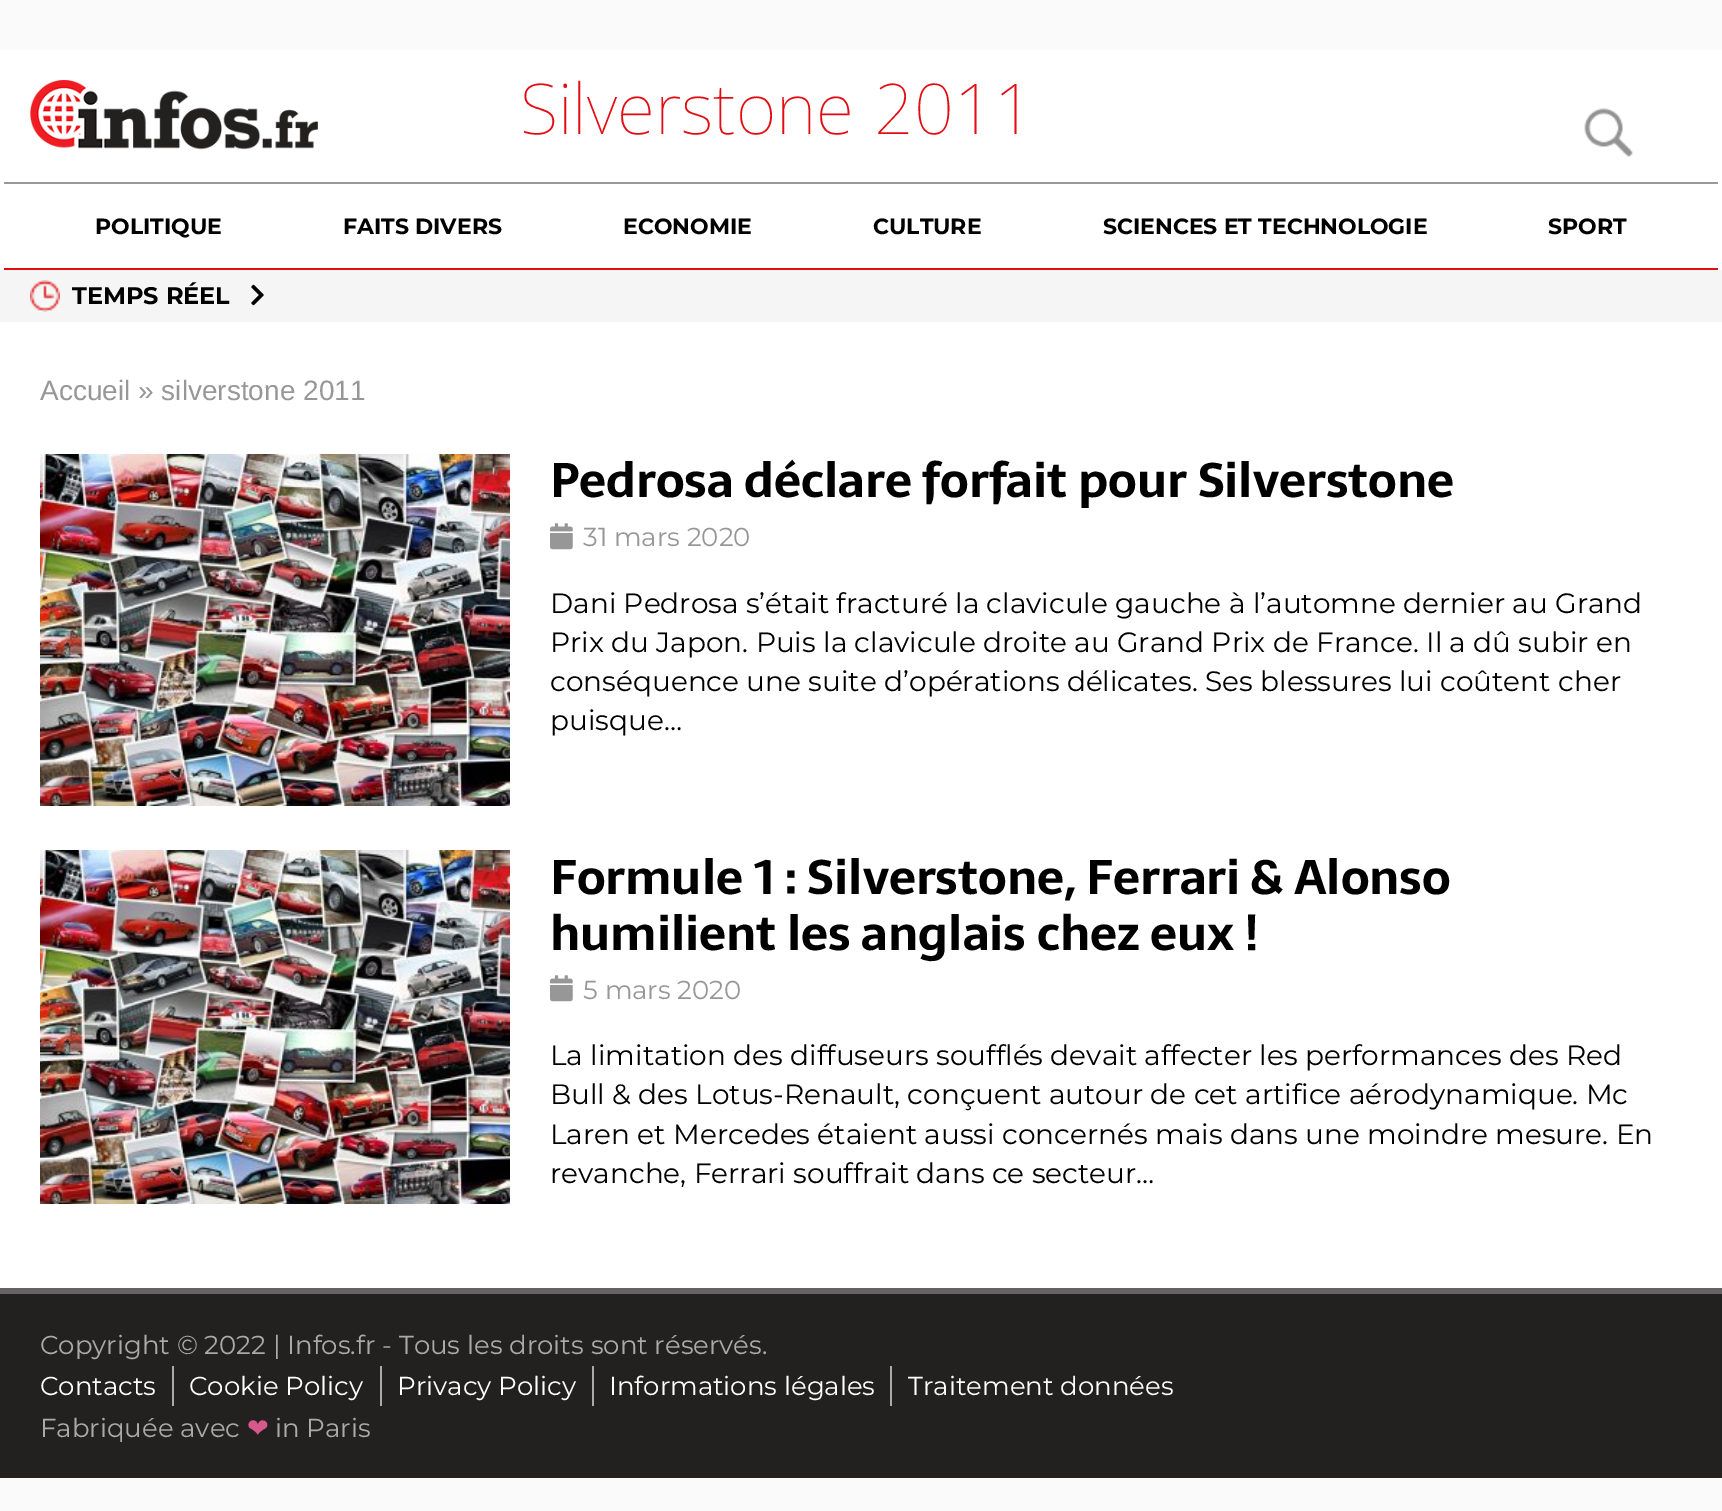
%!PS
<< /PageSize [1722 1511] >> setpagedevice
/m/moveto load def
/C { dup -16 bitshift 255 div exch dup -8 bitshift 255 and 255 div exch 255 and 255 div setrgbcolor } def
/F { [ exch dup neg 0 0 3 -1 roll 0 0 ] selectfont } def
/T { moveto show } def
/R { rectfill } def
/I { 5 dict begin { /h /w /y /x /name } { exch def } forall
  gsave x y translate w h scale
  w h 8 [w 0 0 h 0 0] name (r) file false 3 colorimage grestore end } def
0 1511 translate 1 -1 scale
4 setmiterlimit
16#FAFAFA C
0 0 1722 1511 R
16#FFFFFF C
0 50 1722 220 R
(1.rgb) 30 80 288 70 I
/NotoSans-Thin 70 F
16#E30C13 C
520 134 m 2 0 32 (Silverstone 2011) widthshow
(2.rgb) 1584 108 49 49 I
16#999999 C
4 182 1714 2 R
16#E30C13 C
4 268 1714 2 R
/Montserrat-Bold 22 F
16#000000 C
(POLITIQUE) 95 234 T
(FAITS DIVERS) 343 234 T
(ECONOMIE) 623 234 T
(CULTURE) 873 234 T
(SCIENCES ET TECHNOLOGIE) 1103 234 T
(SPORT) 1548 234 T
16#F5F5F5 C
0 270 1722 52 R
(3.rgb) 30 280 30 32 I
/Montserrat-Bold 24 F
16#000000 C
(TEMPS RÉEL) 72 304 T
(4.rgb) 251 284 13 22 I
16#FFFFFF C
0 322 1722 966 R
/LiberationSans-Regular 28 F
16#979797 C
(Accueil » silverstone 2011) 40 400 T
(5.rgb) 40 454 470 352 I
/Sarala-Bold 48 F
16#000000 C
(Pedrosa déclare forfait pour Silverstone) 550 497 T
(6.rgb) 550 523 23 27 I
/Montserrat-Regular 26 F
16#979797 C
(31 mars 2020) 583 546 T
/Montserrat-Regular 28 F
16#000000 C
(Dani Pedrosa s’était fracturé la clavicule gauche à l’automne dernier au Grand) 550 613 T
(Prix du Japon. Puis la clavicule droite au Grand Prix de France. Il a dû subir en) 550 652 T
(conséquence une suite d’opérations délicates. Ses blessures lui coûtent cher) 550 691 T
(puisque…) 550 730 T
(7.rgb) 40 850 470 354 I
/Sarala-Bold 48 F
(Formule 1 : Silverstone, Ferrari & Alonso) 550 894 T
(humilient les anglais chez eux !) 550 950 T
(6.rgb) 550 975 23 27 I
/Montserrat-Regular 26 F
16#979797 C
(5 mars 2020) 583 999 T
/Montserrat-Regular 28 F
16#000000 C
(La limitation des diffuseurs soufflés devait affecter les performances des Red) 550 1065 T
(Bull & des Lotus-Renault, conçuent autour de cet artifice aérodynamique. Mc) 550 1104 T
(Laren et Mercedes étaient aussi concernés mais dans une moindre mesure. En) 550 1144 T
(revanche, Ferrari souffrait dans ce secteur…) 550 1183 T
16#232020 C
0 1294 1722 184 R
16#656363 C
0 1288 1722 6 R
/Montserrat-Regular 26 F
16#AAAAAA C
(Copyright © 2022 | Infos.fr - Tous les droits sont réservés.) 40 1354 T
172 1366 2 40 R
16#FFFFFF C
(Contacts) 40 1395 T
16#AAAAAA C
380 1366 2 40 R
16#FFFFFF C
(Cookie Policy) 189 1395 T
16#AAAAAA C
592 1366 2 40 R
16#FFFFFF C
(Privacy Policy) 397 1395 T
16#AAAAAA C
890 1366 2 40 R
16#FFFFFF C
(Informations légales) 609 1395 T
(Traitement données) 908 1395 T
16#AAAAAA C
(Fabriquée avec) 40 1437 T
/DejaVuSans-Regular 26 F
16#D7598B C
(❤) 247 1437 T
/Montserrat-Regular 26 F
16#AAAAAA C
(in Paris) 275 1437 T
showpage
